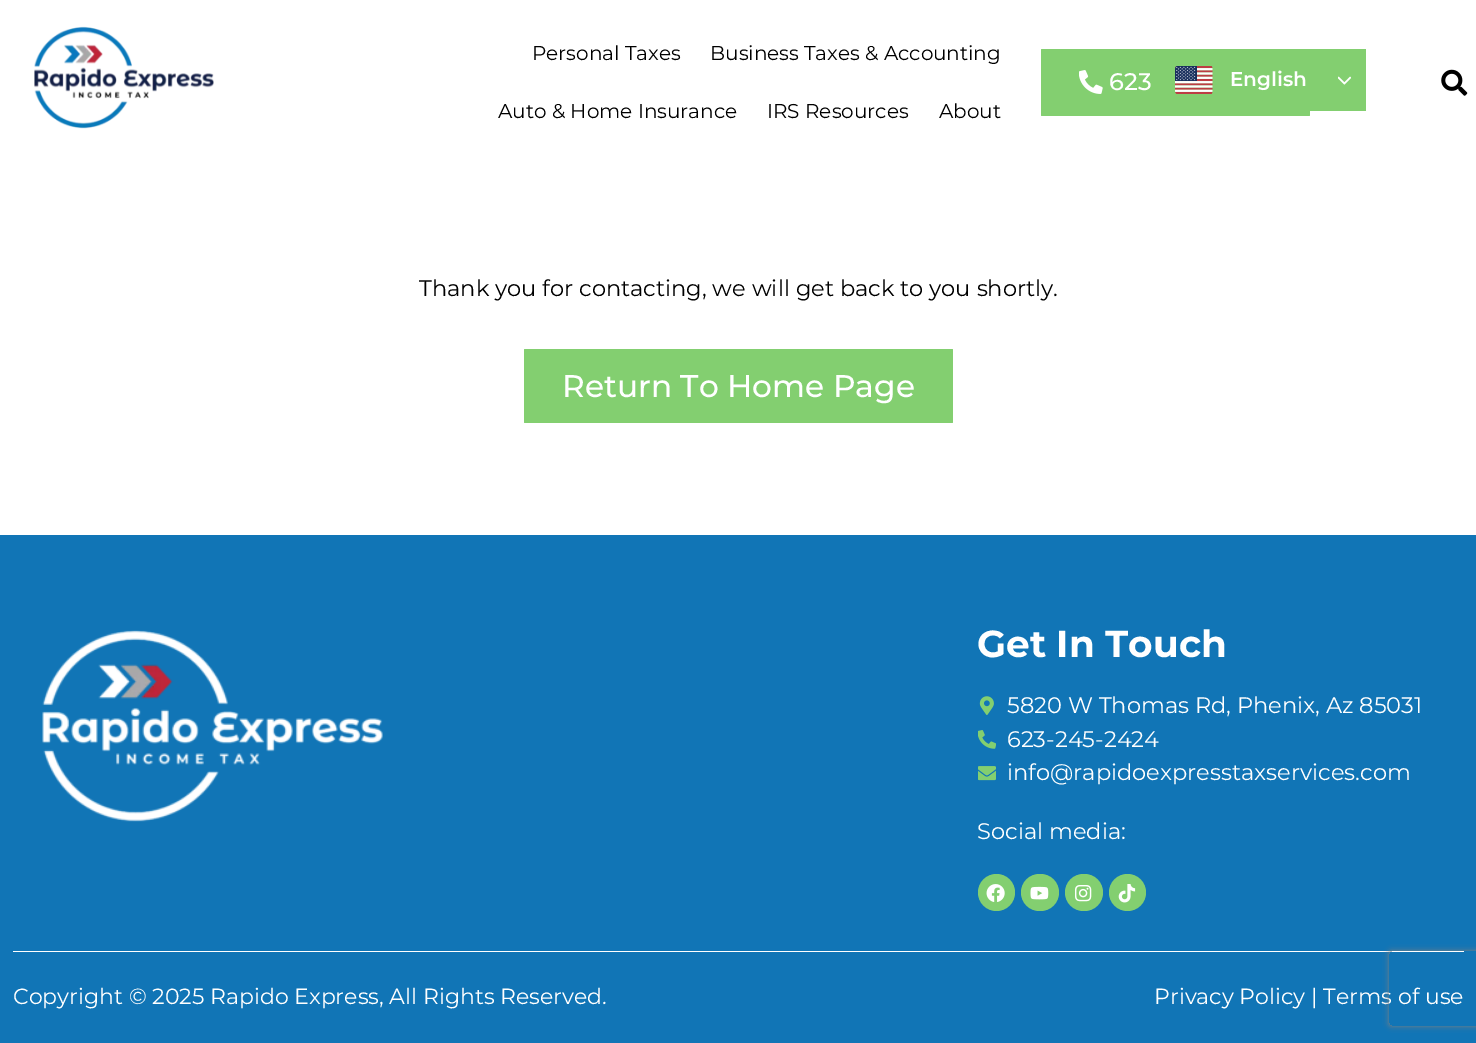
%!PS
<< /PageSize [1476 1043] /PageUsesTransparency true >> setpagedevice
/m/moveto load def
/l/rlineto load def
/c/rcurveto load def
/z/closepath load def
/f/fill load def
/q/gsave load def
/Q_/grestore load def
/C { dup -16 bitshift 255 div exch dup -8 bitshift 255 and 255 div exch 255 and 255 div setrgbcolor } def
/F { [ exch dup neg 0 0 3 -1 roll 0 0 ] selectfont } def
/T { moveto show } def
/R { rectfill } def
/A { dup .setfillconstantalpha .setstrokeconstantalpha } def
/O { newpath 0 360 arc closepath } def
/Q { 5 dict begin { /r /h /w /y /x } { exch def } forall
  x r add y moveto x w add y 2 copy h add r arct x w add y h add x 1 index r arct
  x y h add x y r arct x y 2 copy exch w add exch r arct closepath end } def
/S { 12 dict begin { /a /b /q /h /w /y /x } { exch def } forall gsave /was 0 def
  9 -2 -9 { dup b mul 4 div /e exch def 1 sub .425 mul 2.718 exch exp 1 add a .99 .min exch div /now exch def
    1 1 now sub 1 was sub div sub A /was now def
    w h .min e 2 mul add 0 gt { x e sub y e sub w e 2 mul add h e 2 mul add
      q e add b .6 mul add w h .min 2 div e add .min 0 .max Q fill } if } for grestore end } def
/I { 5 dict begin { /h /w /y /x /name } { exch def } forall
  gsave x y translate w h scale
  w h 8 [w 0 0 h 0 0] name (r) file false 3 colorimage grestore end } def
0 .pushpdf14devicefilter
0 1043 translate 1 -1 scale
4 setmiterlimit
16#FFFFFF C
0 0 1476 1043 R
(1.rgb) 34 26 180 103 I
/Montserrat-Regular 20 F
16#000000 C
(Personal Taxes) 532 60 T
(Business Taxes & Accounting) 710 60 T
(Auto & Home Insurance) 498 118 T
(IRS Resources) 767 118 T
(About) 939 118 T
16#83CF70 C
1041 49 269 67 1 Q f
(2.rgb) 1079 70 24 24 I
/Montserrat-Medium 24 F
16#FFFFFF C
(623) 1109 90 T
16#83CF70 C
1309 49 57 62 R
(3.rgb) 1175 66 38 28 I
/Montserrat-SemiBold 20 F
16#FFFFFF C
(English) 1230 86 T
(4.rgb) 1338 76 13 9 I
(5.rgb) 1441 69 27 27 I
/Montserrat-Regular 22.5 F
16#000000 C
(Thank you for contacting, we will get back to you shortly.) 419 296 T
16#83CF70 C
524 349 429 74 1 Q f
/Montserrat-Medium 31.25 F
16#FFFFFF C
(Return To Home Page) 562 397 T
16#1175B6 C
0 535 1476 508 R
(6.rgb) 42 630 341 192 I
/Montserrat-Bold 37.5 F
16#FFFFFF C
(Get In Touch) 977 657 T
(7.rgb) 979 696 15 19 I
/Montserrat-Regular 22.5 F
(5820 W Thomas Rd, Phenix, Az 85031) 1007 713 T
(8.rgb) 978 730 18 19 I
(623-245-2424) 1007 747 T
(9.rgb) 978 766 18 15 I
(info@rapidoexpresstaxservices.com) 1007 780 T
(Social media:) 977 839 T
16#83CF70 C
996.5 892.5 18.5 O f
(10.rgb) 986 884 19 18 I
1021 874 38 37 18.5 Q f
(11.rgb) 1030 886 19 14 I
1065 874 38 37 18.5 Q f
(12.rgb) 1075 885 17 17 I
1127.5 892.5 18.5 O f
(13.rgb) 1118 884 18 19 I
16#FFFFFF C
13 951 1451 1 R
/Montserrat-Regular 22 F
(Copyright © 2025 Rapido Express, All Rights Reserved.) 13 1004 T
(Privacy Policy | Terms of use) 1154 1004 T
q
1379 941 m 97 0 l 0 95 l -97 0 l z 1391.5 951 m 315 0 l 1.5 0 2.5 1 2.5 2.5 c 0 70 l 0 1.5 -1 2.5 -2.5 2.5 c -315 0 l -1.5 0 -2.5 -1 -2.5 -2.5 c 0 -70 l 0 -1.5 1 -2.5 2.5 -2.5 c z eoclip newpath
16#808080 C
1389 951 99 75 2.5 3 1 S
Q_
.poppdf14devicefilter showpage
